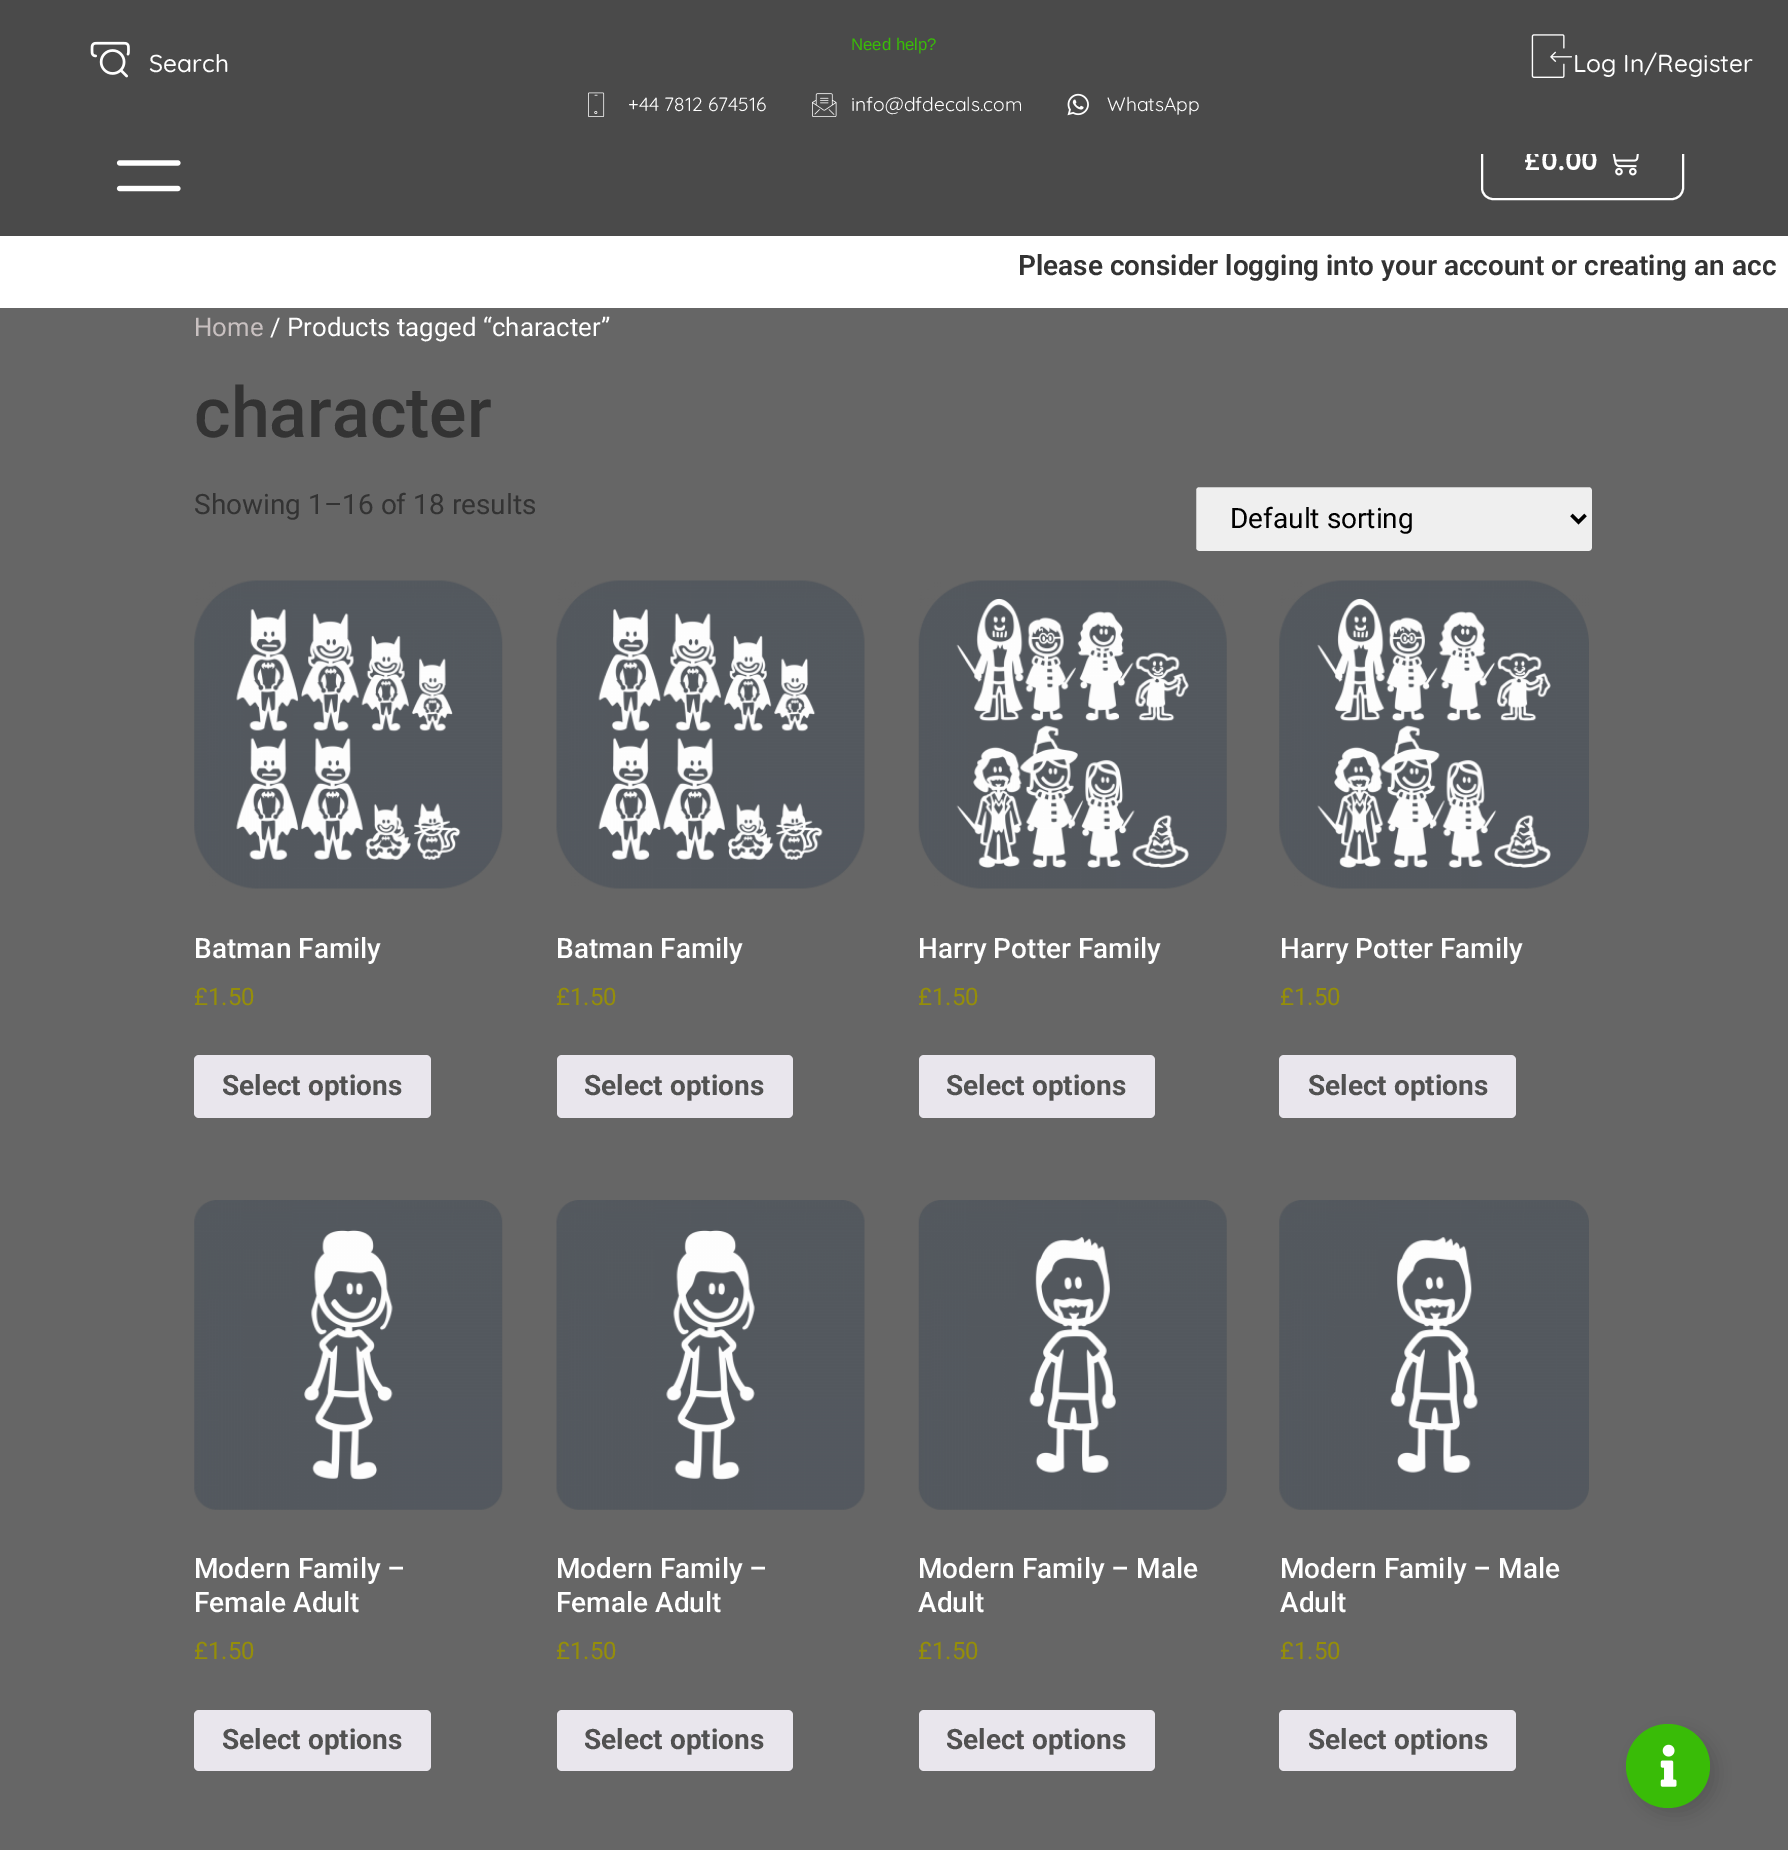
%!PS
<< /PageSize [1788 1850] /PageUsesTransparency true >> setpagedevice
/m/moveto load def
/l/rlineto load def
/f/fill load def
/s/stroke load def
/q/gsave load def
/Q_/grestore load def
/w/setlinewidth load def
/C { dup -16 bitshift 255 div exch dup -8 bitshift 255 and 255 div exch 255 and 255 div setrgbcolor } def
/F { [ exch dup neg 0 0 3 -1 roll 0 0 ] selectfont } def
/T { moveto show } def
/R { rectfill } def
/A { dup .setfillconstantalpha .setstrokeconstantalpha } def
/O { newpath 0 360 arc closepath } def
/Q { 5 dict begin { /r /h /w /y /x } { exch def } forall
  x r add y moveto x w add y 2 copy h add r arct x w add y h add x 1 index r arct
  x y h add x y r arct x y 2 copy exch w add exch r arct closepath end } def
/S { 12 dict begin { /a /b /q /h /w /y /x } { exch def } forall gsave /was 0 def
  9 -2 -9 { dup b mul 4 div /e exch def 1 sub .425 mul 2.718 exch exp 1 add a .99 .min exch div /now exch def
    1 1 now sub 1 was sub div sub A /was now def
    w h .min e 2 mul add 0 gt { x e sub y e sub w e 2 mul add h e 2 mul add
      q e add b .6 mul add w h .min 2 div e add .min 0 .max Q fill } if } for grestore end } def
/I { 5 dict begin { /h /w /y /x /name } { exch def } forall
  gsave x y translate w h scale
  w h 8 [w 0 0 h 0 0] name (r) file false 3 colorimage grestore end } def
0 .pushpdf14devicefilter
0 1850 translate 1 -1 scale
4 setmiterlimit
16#666666 C
0 0 1788 1850 R
16#4A4A4A C
0 154 1788 82 R
16#FFFFFF C
2 w
1482 122 201 77 11 Q s
/Poppins-SemiBold 26 F
(£0.00) 1524 170 T
16#4A4A4A C
0 0 1788 154 R
/LiberationSans-Regular 16.75 F
16#39BC07 C
(Need help?) 851 50 T
(1.rgb) 588 92 17 25 I
/Quicksand-Regular 19.25 F
16#FFFFFF C
(+44 7812 674516) 628 111 T
(2.rgb) 812 93 25 24 I
(info@dfdecals.com) 851 111 T
(3.rgb) 1067 93 22 23 I
(WhatsApp) 1107 111 T
(4.rgb) 90 41 40 37 I
/Quicksand-Medium 24.5 F
(Search) 149 72 T
(5.rgb) 1531 34 41 44 I
(Log In/Register) 1573 72 T
(6.rgb) 116 160 65 32 I
(7.rgb) 1612 154 27 22 I
0 236 1788 72 R
/Roboto-SemiBold 28 F
16#333333 C
(Please consider logging into your account or creating an acc) 1018 275 T
/Roboto-Regular 25.75 F
16#C8C0C0 C
(Home) 194 336 T
16#FFFFFF C
(/ Products tagged “character”) 270 336 T
/Roboto-Medium 70 F
16#333333 C
(character) 194 437 T
/Roboto-Regular 28 F
(Showing 1–16 of 18 results) 194 514 T
16#EFEFEF C
1195 486 398 66 4 Q q f Q_
16#666666 C
s
16#000000 C
3.5 w
1571.5 515 m 7 7 l 7 -7 l s
(Default sorting) 1230 528 T
(8.rgb) 194 580 309 309 I
/Roboto-Medium 28 F
16#FFFFFF C
(Batman Family) 194 958 T
/Roboto-Regular 24 F
16#958E09 C
(£1.50) 194 1005 T
16#E9E6ED C
194 1055 237 63 5 Q f
/Roboto-Bold 28 F
16#515151 C
(Select options) 222 1095 T
(9.rgb) 556 580 309 309 I
/Roboto-Medium 28 F
16#FFFFFF C
(Batman Family) 556 958 T
/Roboto-Regular 24 F
16#958E09 C
(£1.50) 556 1005 T
16#E9E6ED C
557 1055 236 63 5 Q f
/Roboto-Bold 28 F
16#515151 C
(Select options) 584 1095 T
(10.rgb) 918 580 309 309 I
/Roboto-Medium 28 F
16#FFFFFF C
(Harry Potter Family) 918 958 T
/Roboto-Regular 24 F
16#958E09 C
(£1.50) 918 1005 T
16#E9E6ED C
919 1055 236 63 5 Q f
/Roboto-Bold 28 F
16#515151 C
(Select options) 946 1095 T
(11.rgb) 1279 580 310 309 I
/Roboto-Medium 28 F
16#FFFFFF C
(Harry Potter Family) 1280 958 T
/Roboto-Regular 24 F
16#958E09 C
(£1.50) 1280 1005 T
16#E9E6ED C
1279 1055 237 63 5 Q f
/Roboto-Bold 28 F
16#515151 C
(Select options) 1308 1095 T
(12.rgb) 194 1200 309 310 I
/Roboto-Medium 28 F
16#FFFFFF C
(Modern Family –) 194 1578 T
(Female Adult) 194 1612 T
/Roboto-Regular 24 F
16#958E09 C
(£1.50) 194 1659 T
16#E9E6ED C
194 1710 237 61 5 Q f
/Roboto-Bold 28 F
16#515151 C
(Select options) 222 1749 T
(13.rgb) 556 1200 309 310 I
/Roboto-Medium 28 F
16#FFFFFF C
(Modern Family –) 556 1578 T
(Female Adult) 556 1612 T
/Roboto-Regular 24 F
16#958E09 C
(£1.50) 556 1659 T
16#E9E6ED C
557 1710 236 61 5 Q f
/Roboto-Bold 28 F
16#515151 C
(Select options) 584 1749 T
(14.rgb) 918 1200 309 310 I
/Roboto-Medium 28 F
16#FFFFFF C
(Modern Family – Male) 918 1578 T
(Adult) 918 1612 T
/Roboto-Regular 24 F
16#958E09 C
(£1.50) 918 1659 T
16#E9E6ED C
919 1710 236 61 5 Q f
/Roboto-Bold 28 F
16#515151 C
(Select options) 946 1749 T
(15.rgb) 1279 1200 310 310 I
/Roboto-Medium 28 F
16#FFFFFF C
(Modern Family – Male) 1280 1578 T
(Adult) 1280 1612 T
/Roboto-Regular 24 F
16#958E09 C
(£1.50) 1280 1659 T
16#E9E6ED C
1279 1710 237 61 5 Q f
/Roboto-Bold 28 F
16#515151 C
(Select options) 1308 1749 T
16#000000 C
1633 1731 84 84 42 9 .15 S
16#39BC07 C
1668 1766 42 O f
(16.rgb) 1660 1744 17 43 I
.poppdf14devicefilter showpage
